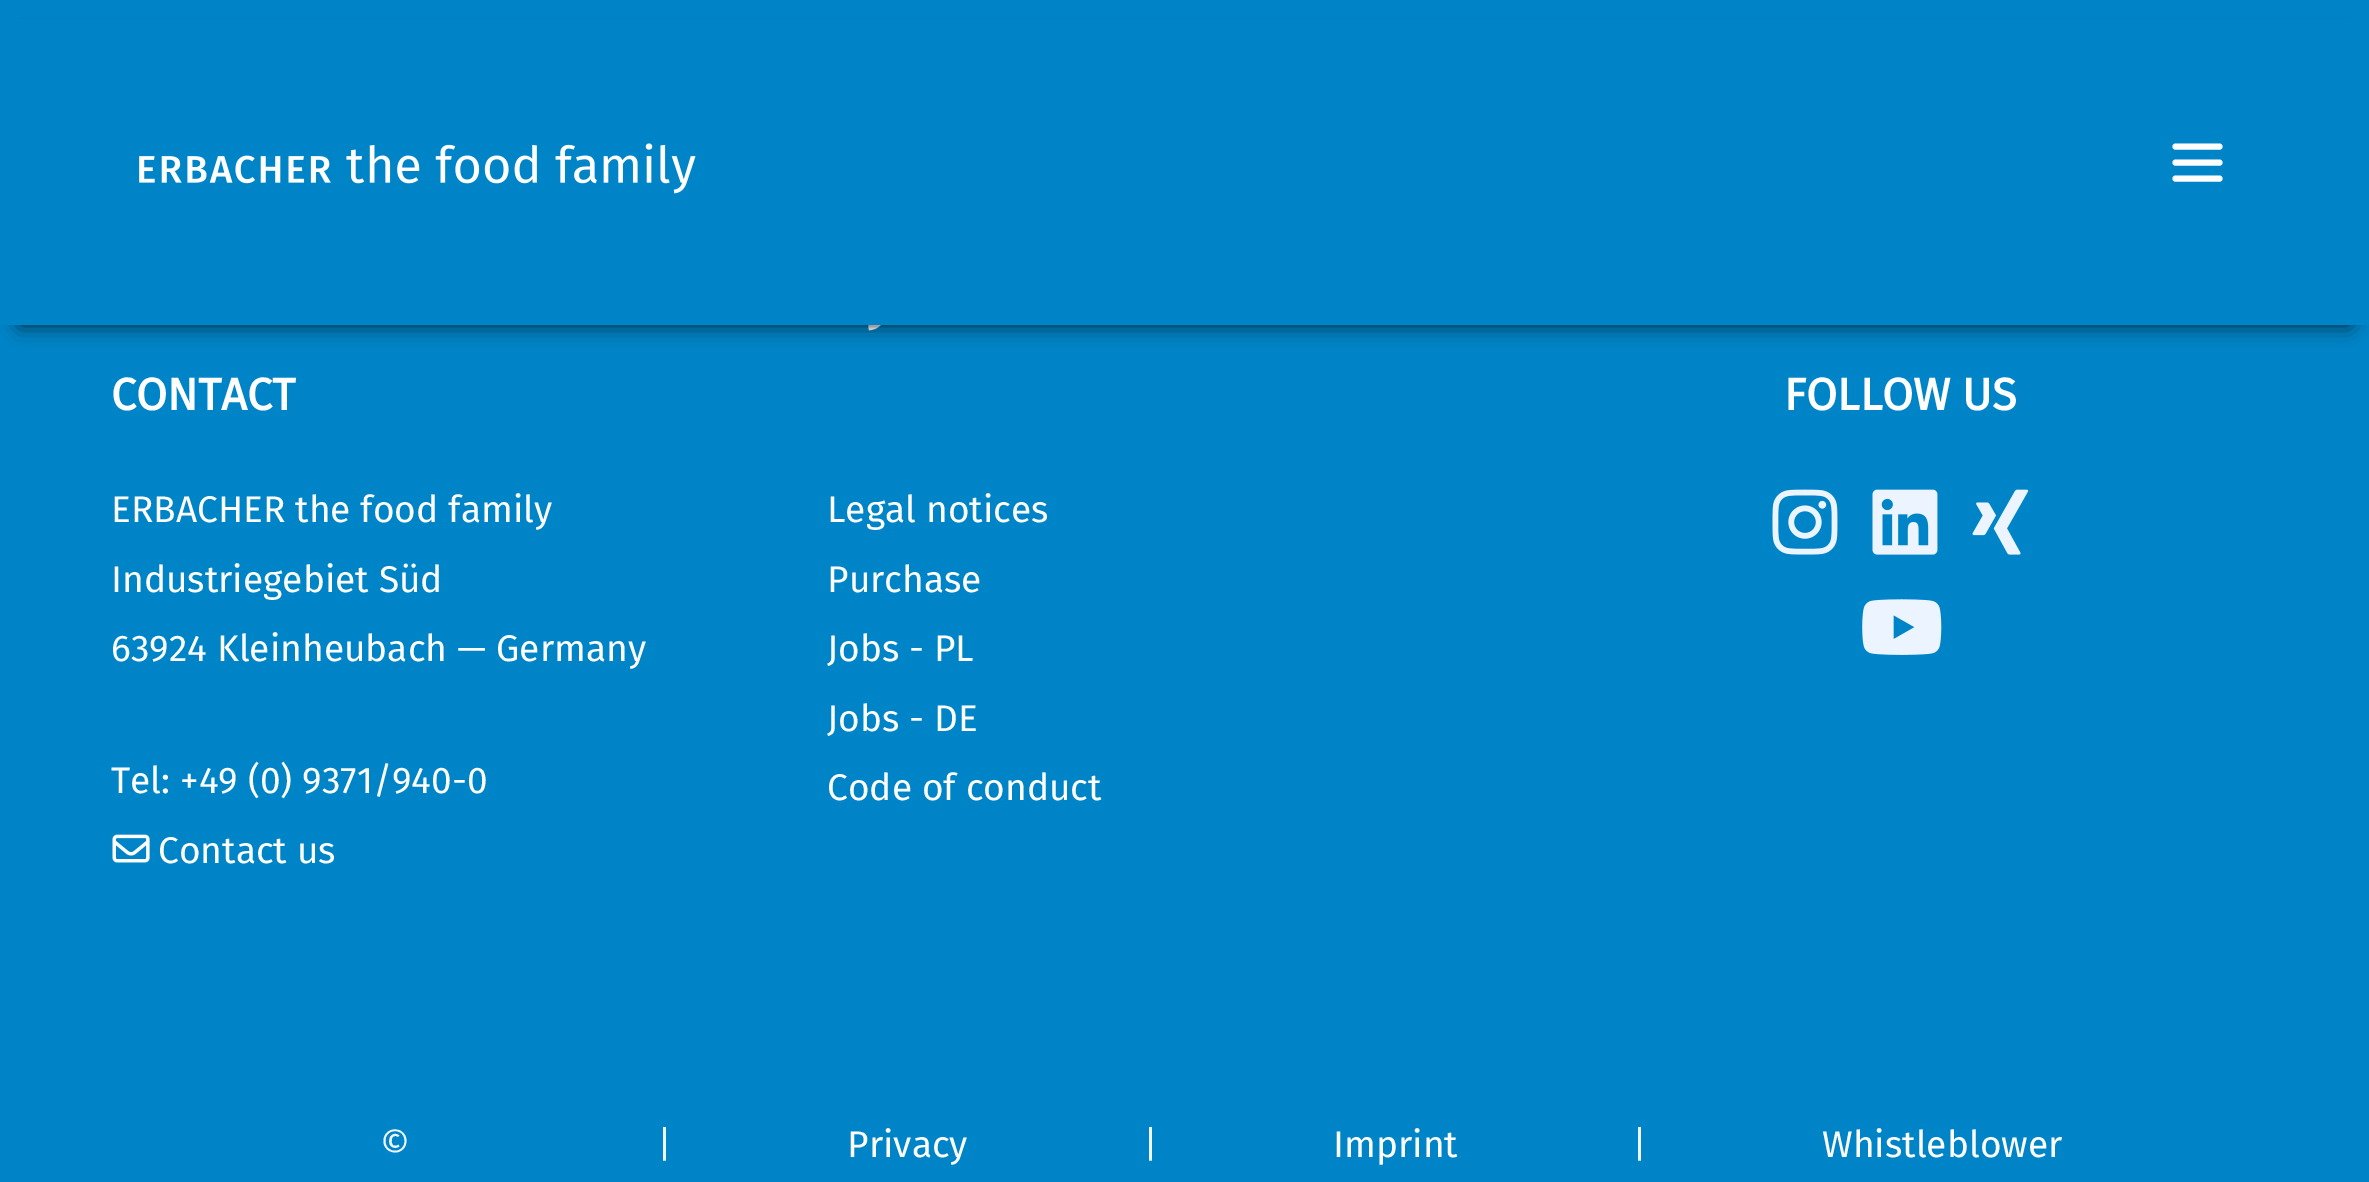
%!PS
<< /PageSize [2369 1182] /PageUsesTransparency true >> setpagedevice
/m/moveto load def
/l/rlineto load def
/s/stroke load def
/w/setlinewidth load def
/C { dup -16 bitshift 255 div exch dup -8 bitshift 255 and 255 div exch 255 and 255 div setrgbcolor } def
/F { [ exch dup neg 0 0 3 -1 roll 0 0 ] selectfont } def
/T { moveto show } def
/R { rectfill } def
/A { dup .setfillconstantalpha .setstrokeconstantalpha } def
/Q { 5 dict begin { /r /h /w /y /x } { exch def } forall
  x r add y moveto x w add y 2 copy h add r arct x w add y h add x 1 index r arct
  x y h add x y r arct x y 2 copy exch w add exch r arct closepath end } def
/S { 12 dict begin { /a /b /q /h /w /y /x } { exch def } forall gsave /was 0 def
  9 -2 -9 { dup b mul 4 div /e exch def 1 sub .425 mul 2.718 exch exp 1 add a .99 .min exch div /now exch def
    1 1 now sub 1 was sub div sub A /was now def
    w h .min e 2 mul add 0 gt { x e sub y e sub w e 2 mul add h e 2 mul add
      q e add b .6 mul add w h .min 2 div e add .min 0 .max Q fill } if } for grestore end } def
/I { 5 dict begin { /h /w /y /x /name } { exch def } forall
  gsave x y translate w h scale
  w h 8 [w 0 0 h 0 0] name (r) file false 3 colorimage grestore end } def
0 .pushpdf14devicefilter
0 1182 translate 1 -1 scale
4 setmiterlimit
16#0084C8 C
0 0 2369 1182 R
(2.rgb) 868 325 13 6 I
16#000000 C
20 40 2330 285 0 10 .75 S
16#0084C8 C
0 19 2369 306 R
(1.rgb) 139 143 557 51 I
16#FFFFFF C
6 w
1 setlinecap
2175.5 146.5 m 44 0 l 2175.5 162.5 m 44 0 l 2175.5 178.5 m 44 0 l s
/FiraSans-Bold 45 F
(CONTACT) 111 410 T
/FiraSans-Regular 37.1 F
(ERBACHER the food family) 111 522 T
(Industriegebiet Süd) 111 592 T
(63924 Kleinheubach — Germany) 111 661 T
(Tel: +49 \(0\) 9371/940-0) 111 793 T
(3.rgb) 112 834 38 29 I
(Contact us) 158 863 T
/FiraSans-Bold 45 F
(FOLLOW US) 1784 410 T
(4.rgb) 1772 489 66 66 I
(5.rgb) 1872 489 66 66 I
(6.rgb) 1972 489 57 66 I
(7.rgb) 1862 599 80 56 I
/FiraSans-Regular 37.1 F
(Legal notices) 827 522 T
(Purchase) 827 592 T
(Jobs - PL) 827 661 T
(Jobs - DE) 827 731 T
(Code of conduct) 827 800 T
16#F1F7FF C
(©) 380 1157 T
(|) 657 1157 T
16#FFFFFF C
(Privacy) 847 1157 T
16#F1F7FF C
(|) 1143 1157 T
16#FFFFFF C
(Imprint) 1333 1157 T
16#F1F7FF C
(|) 1632 1157 T
16#FFFFFF C
(Whistleblower) 1822 1157 T
.poppdf14devicefilter showpage
